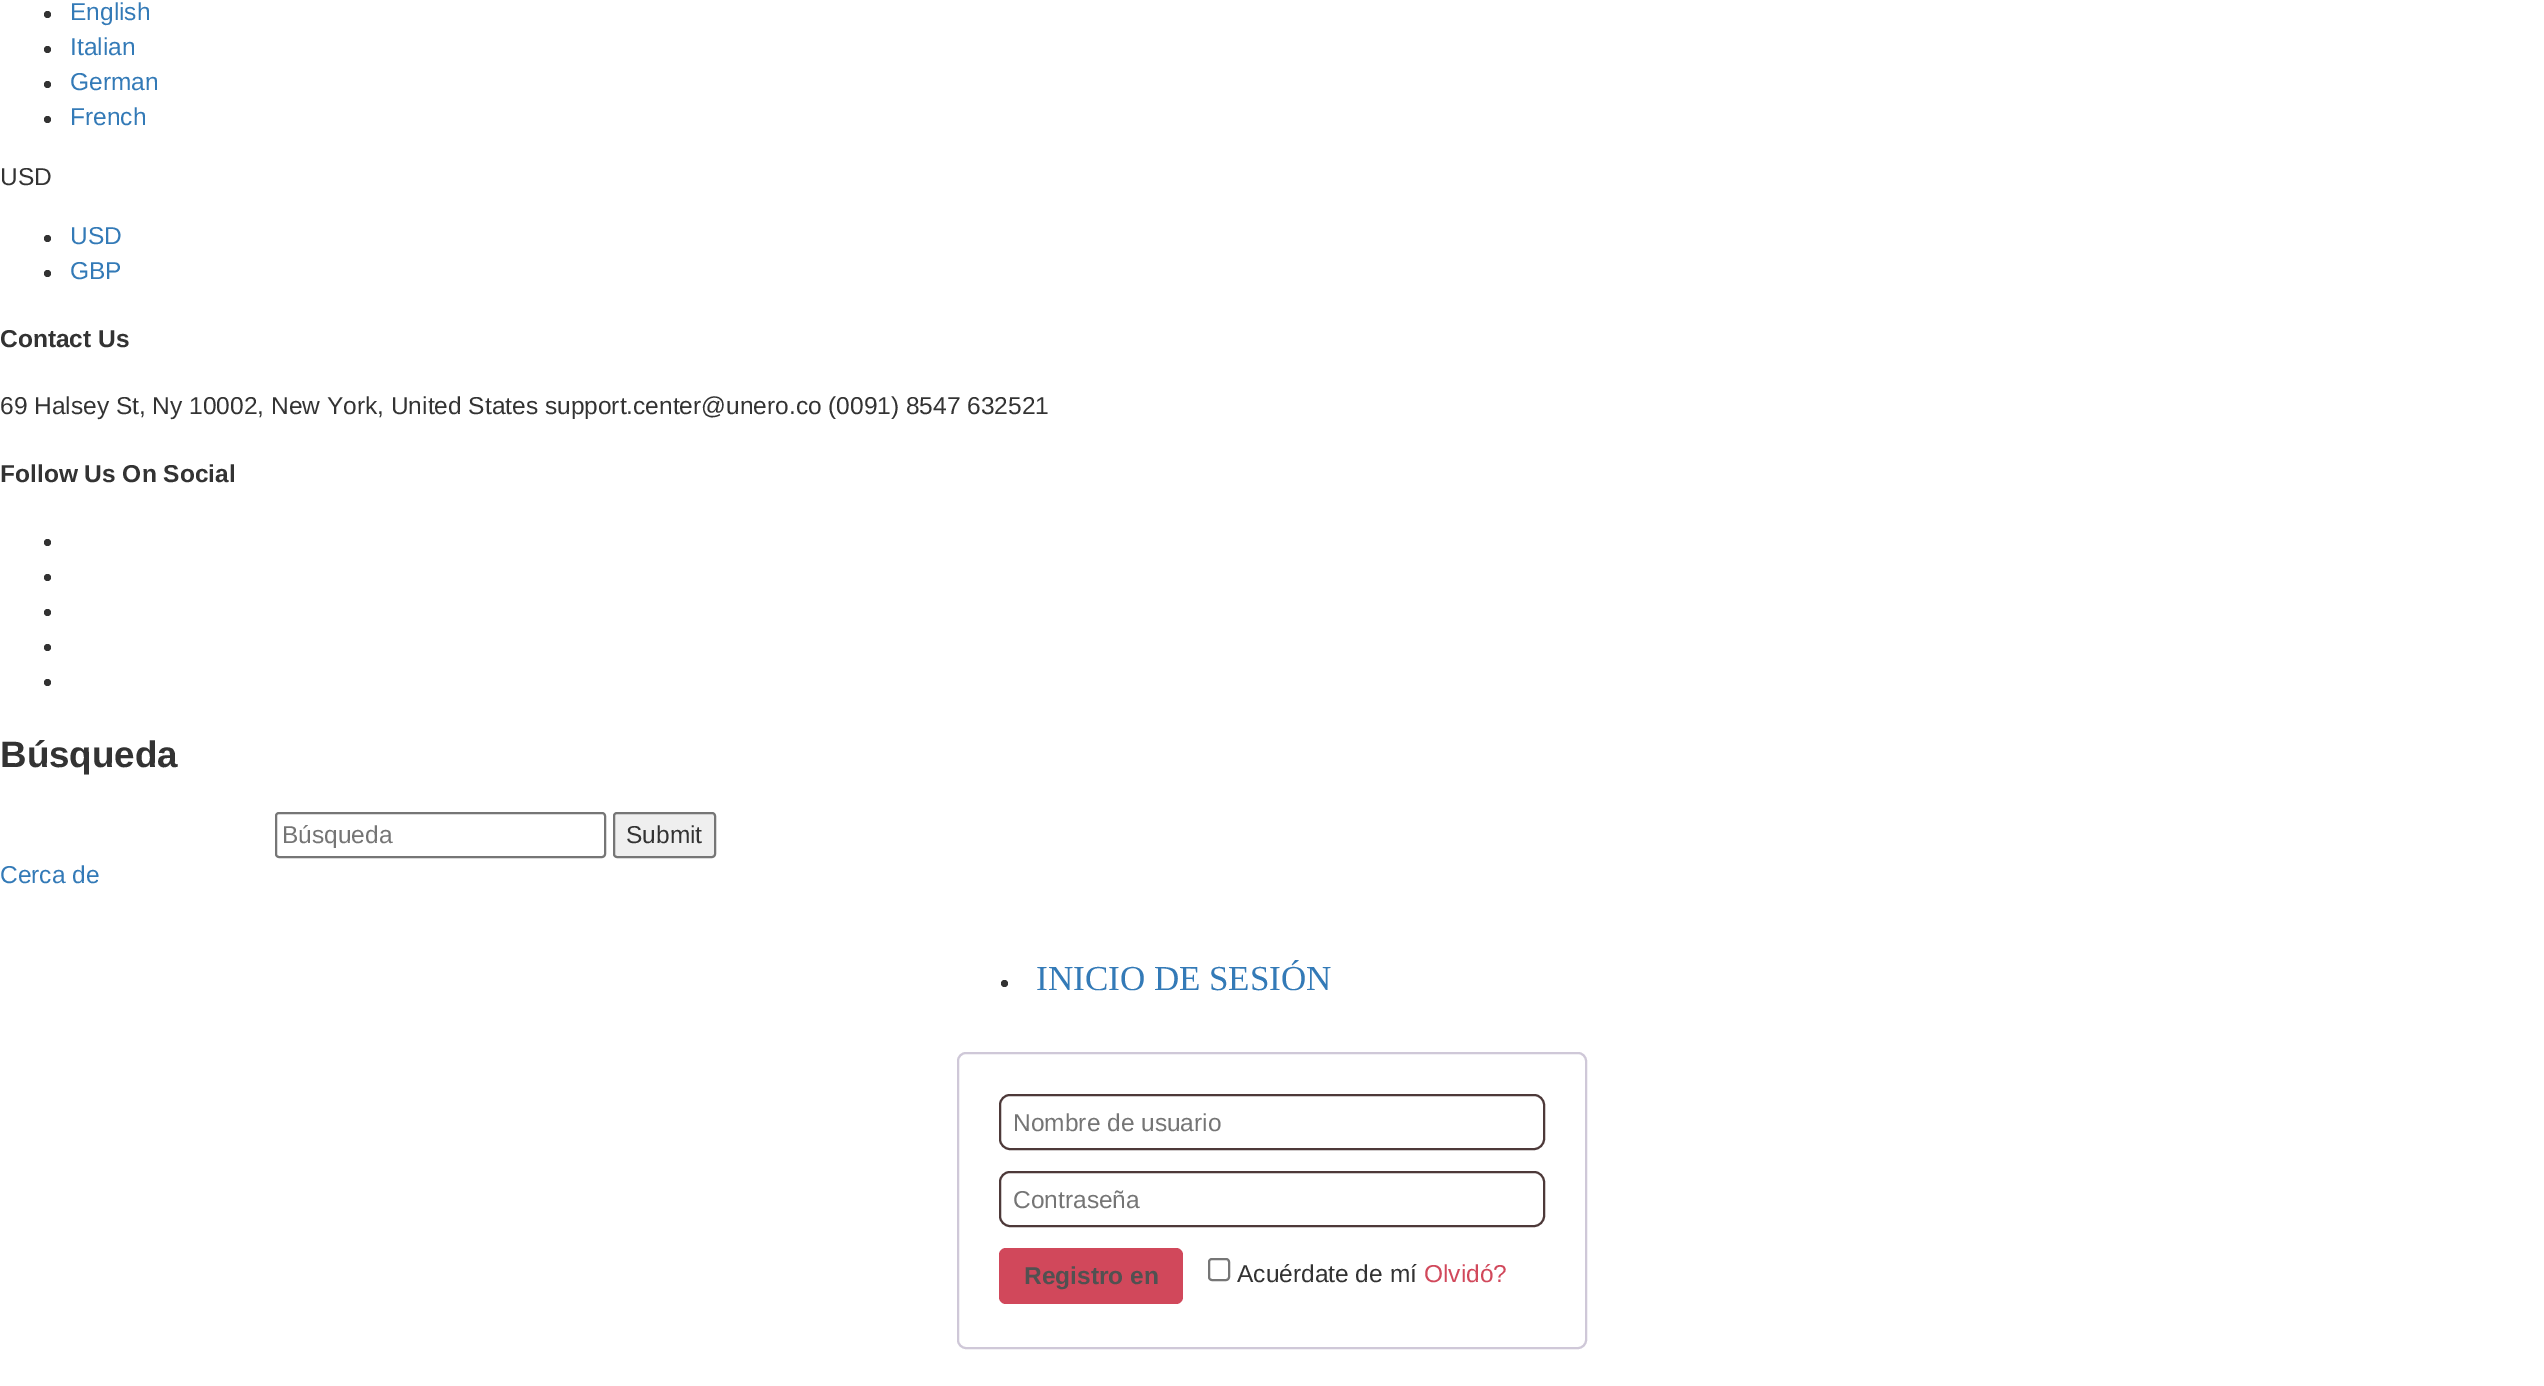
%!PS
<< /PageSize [2544 1386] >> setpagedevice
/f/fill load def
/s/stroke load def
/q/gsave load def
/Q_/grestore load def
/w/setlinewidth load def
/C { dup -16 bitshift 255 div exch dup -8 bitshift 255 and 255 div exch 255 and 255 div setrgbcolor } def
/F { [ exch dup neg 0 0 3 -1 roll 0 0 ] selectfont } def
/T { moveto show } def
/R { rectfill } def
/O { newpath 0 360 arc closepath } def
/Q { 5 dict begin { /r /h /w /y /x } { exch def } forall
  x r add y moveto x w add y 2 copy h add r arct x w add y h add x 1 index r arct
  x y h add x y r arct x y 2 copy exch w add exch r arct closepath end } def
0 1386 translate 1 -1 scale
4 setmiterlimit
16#FFFFFF C
0 0 2544 1386 R
16#333333 C
47.5 14.5 3.5 O f
/LiberationSans-Regular 24.5 F
16#337AB7 C
(English) 70 20 T
16#333333 C
47.5 49.5 3.5 O f
16#337AB7 C
(Italian) 70 55 T
16#333333 C
47.5 84.5 3.5 O f
16#337AB7 C
(German) 70 90 T
16#333333 C
47.5 119.5 3.5 O f
16#337AB7 C
(French) 70 125 T
16#333333 C
(USD) 0 185 T
47.5 238.5 3.5 O f
16#337AB7 C
(USD) 70 244 T
16#333333 C
47.5 273.5 3.5 O f
16#337AB7 C
(GBP) 70 279 T
/LiberationSans-Bold 24.5 F
16#333333 C
(Contact Us) 0 347 T
/LiberationSans-Regular 24.5 F
(69 Halsey St, Ny 10002, New York, United States support.center@unero.co \(0091\) 8547 632521) 0 414 T
/LiberationSans-Bold 24.5 F
(Follow Us On Social) 0 482 T
47.5 542.5 3.5 O f
47.5 577.5 3.5 O f
47.5 612.5 3.5 O f
47.5 647.5 3.5 O f
47.5 682.5 3.5 O f
/LiberationSans-Bold 36.75 F
(Búsqueda) 0 767 T
16#767676 C
2 w
276 813 329 44 3 Q s
/LiberationSans-Regular 24.5 F
16#757575 C
(Búsqueda) 282 843 T
16#EFEFEF C
614 813 101 44 3 Q q f Q_
16#767676 C
s
16#333333 C
(Submit) 626 843 T
16#337AB7 C
(Cerca de) 0 883 T
16#333333 C
1004.5 983.5 3.5 O f
/LiberationSerif-Regular 35 F
16#337AB7 C
(INICIO DE SESIÓN) 1036 990 T
16#CFC8D8 C
958 1053 628 295 8 Q s
16#4D3939 C
1000 1095 544 54 10 Q s
/LiberationSans-Regular 24.5 F
16#757575 C
(Nombre de usuario) 1013 1131 T
16#4D3939 C
1000 1172 544 54 10 Q s
16#757575 C
(Contraseña) 1013 1208 T
16#D1485B C
999 1248 184 56 7 Q f
/LiberationSans-Bold 24.5 F
16#515151 C
(Registro en) 1024 1284 T
16#767676 C
1209 1259 20 21 3 Q s
/LiberationSans-Regular 24.5 F
16#333333 C
(Acuérdate de mí) 1237 1282 T
16#D1485B C
(Olvidó?) 1424 1282 T
showpage
